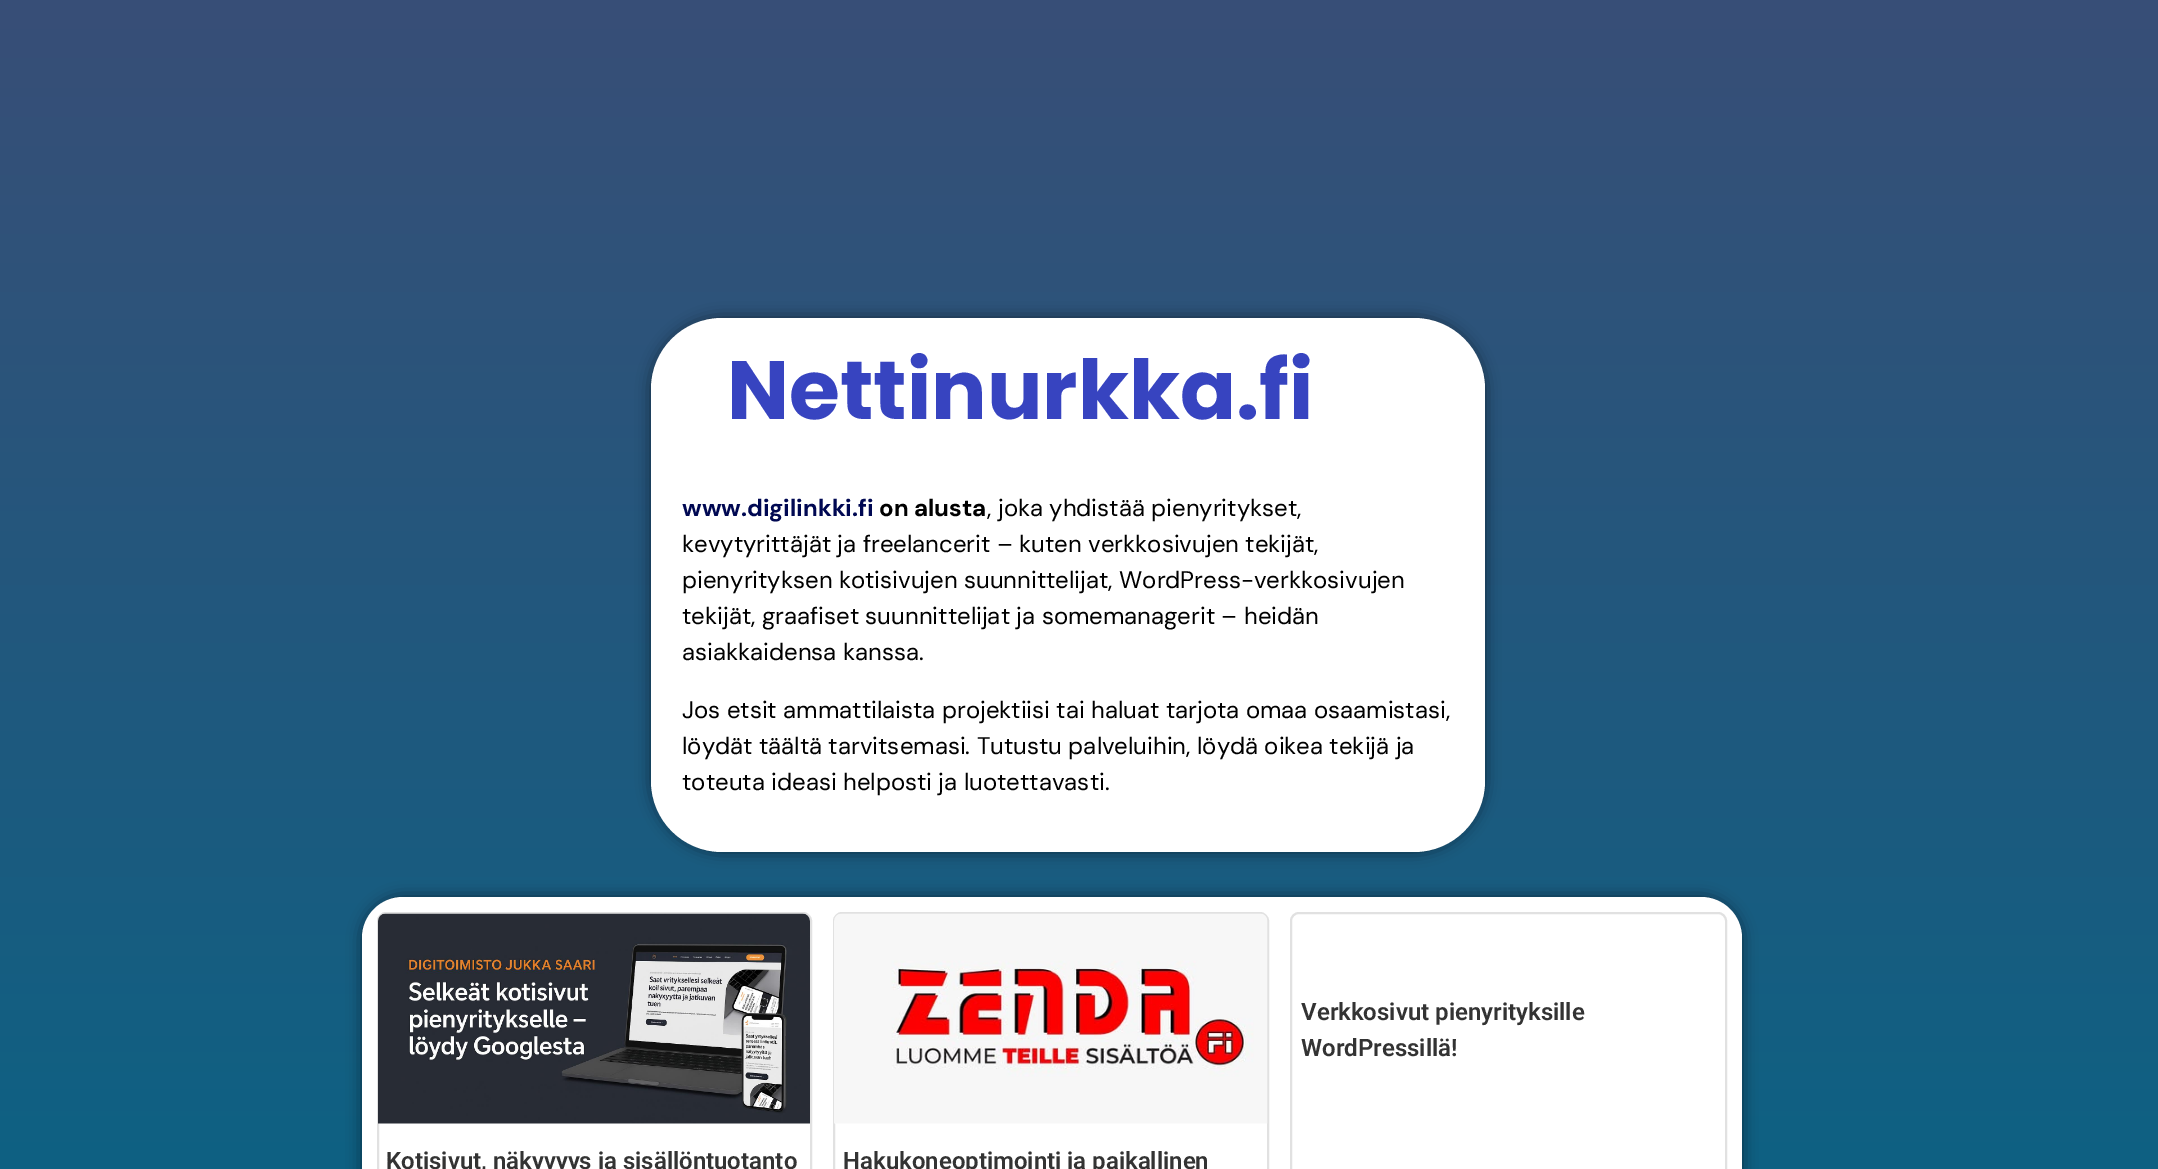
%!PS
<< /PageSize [2158 1169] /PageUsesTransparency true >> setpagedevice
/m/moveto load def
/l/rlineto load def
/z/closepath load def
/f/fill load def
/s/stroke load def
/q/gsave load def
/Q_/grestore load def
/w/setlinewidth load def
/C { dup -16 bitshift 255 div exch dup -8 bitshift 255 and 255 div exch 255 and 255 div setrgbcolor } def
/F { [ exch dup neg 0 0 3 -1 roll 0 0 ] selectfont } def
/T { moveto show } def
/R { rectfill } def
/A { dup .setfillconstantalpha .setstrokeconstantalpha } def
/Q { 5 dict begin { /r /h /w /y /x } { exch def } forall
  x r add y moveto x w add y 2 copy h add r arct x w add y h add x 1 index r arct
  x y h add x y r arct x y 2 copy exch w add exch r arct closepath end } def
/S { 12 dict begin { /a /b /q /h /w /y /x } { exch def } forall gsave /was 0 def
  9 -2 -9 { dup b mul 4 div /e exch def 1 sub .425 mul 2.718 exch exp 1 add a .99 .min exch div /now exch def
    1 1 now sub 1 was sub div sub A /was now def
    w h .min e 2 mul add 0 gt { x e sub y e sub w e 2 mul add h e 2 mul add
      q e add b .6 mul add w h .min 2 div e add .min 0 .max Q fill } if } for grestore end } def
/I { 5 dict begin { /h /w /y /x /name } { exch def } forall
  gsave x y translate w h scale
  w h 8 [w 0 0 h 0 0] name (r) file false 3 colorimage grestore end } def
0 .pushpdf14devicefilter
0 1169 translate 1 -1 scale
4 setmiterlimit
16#FFFFFF C
0 0 2158 1169 R
q 0 0 m 2158 0 l 0 1169 l -2158 0 l z clip newpath
<< /ShadingType 2 /ColorSpace /DeviceRGB /Coords [1079 0 1079 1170] /Extend [true true] /Function << /FunctionType 2 /Domain [0 1] /C0 [.22 .306 .467] /C1 [.055 .38 .514] /N 1 >> >> shfill Q_
16#000000 C
651 318 834 534 71 7.5 .5 S
16#FFFFFF C
651 318 834 534 71 Q f
/Poppins-Bold 82.5 F
16#3744C0 C
(Nettinurkka.fi) 727 419 T
/DMSans-Bold 24 F
16#000852 C
(www.digilinkki.fi) 682 516 T
16#000000 C
(on alusta) 879 516 T
/DMSans-Regular 24 F
(, joka yhdistää pienyritykset,) 987 516 T
(kevytyrittäjät ja freelancerit – kuten verkkosivujen tekijät,) 682 552 T
(pienyrityksen kotisivujen suunnittelijat, WordPress-verkkosivujen) 682 588 T
(tekijät, graafiset suunnittelijat ja somemanagerit – heidän) 682 624 T
(asiakkaidensa kanssa.) 682 660 T
(Jos etsit ammattilaista projektiisi tai haluat tarjota omaa osaamistasi,) 682 718 T
(löydät täältä tarvitsemasi. Tutustu palveluihin, löydä oikea tekijä ja) 682 754 T
(toteuta ideasi helposti ja luotettavasti.) 682 790 T
362 897 1380 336 41 7.5 .5 S
16#FFFFFF C
362 897 1380 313 41 Q f
16#E1E1E1 C
2 w
1291 913 435 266 8 Q s
/Roboto-SemiBold 24 F
16#333333 C
(Verkkosivut pienyrityksille) 1301 1020 T
(WordPressillä!) 1301 1056 T
16#E1E1E1 C
378 913 433 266 8 Q s
(1.rgb) 378 913 432 211 I
16#333333 C
(Kotisivut, näkyvyys ja sisällöntuotanto) 386 1169 T
16#E1E1E1 C
834 913 434 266 8 Q s
(2.rgb) 834 913 434 211 I
16#333333 C
(Hakukoneoptimointi ja paikallinen) 843 1169 T
.poppdf14devicefilter showpage
